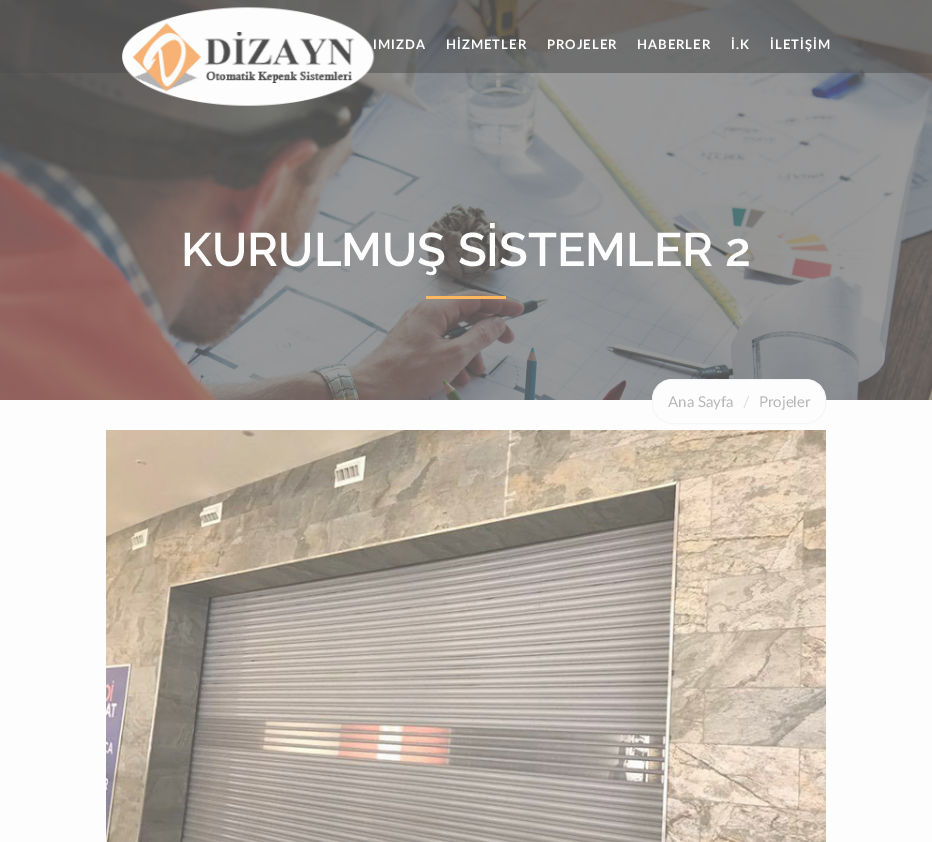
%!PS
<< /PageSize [932 842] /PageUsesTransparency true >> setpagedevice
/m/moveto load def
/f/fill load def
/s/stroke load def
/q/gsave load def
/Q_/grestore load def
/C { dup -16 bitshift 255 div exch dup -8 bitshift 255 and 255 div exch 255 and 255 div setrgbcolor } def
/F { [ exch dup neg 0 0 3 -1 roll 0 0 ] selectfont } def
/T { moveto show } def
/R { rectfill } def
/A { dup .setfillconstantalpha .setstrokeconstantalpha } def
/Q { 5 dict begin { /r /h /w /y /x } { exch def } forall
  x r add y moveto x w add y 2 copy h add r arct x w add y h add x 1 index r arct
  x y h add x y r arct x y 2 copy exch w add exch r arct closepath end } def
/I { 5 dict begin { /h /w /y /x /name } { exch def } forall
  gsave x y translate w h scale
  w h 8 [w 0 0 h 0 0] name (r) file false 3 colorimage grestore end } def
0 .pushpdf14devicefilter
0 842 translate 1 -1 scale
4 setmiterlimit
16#FDFDFD C
0 0 932 842 R
(2.rgb) 0 0 932 400 I
0.53 A
16#4D4D4D C
0 0 932 73 R
1 A
(1.rgb) 122 7 253 99 I
/Lato-Bold 13 F
16#FDFDFD C
373 49 m 1 0 (IMIZDA) ashow
446 49 m 1 0 (HİZMETLER) ashow
547 49 m 1 0 (PROJELER) ashow
637 49 m 1 0 (HABERLER) ashow
731 49 m 1 0 (İ.K) ashow
770 49 m 1 0 (İLETİŞİM) ashow
/Raleway-SemiBold 47 F
(KURULMUŞ SİSTEMLER 2) 181 266 T
16#FDB75F C
426 296 80 3 R
16#FDFDFD C
652.5 379.5 173 44 19.5 Q q f Q_
16#F6F6F6 C
s
/Lato-Regular 15 F
16#B7B7B7 C
(Ana Sayfa) 668 407 T
16#DADADA C
(/) 743 407 T
16#B7B7B7 C
(Projeler) 759 407 T
(3.rgb) 106 430 720 412 I
.poppdf14devicefilter showpage
